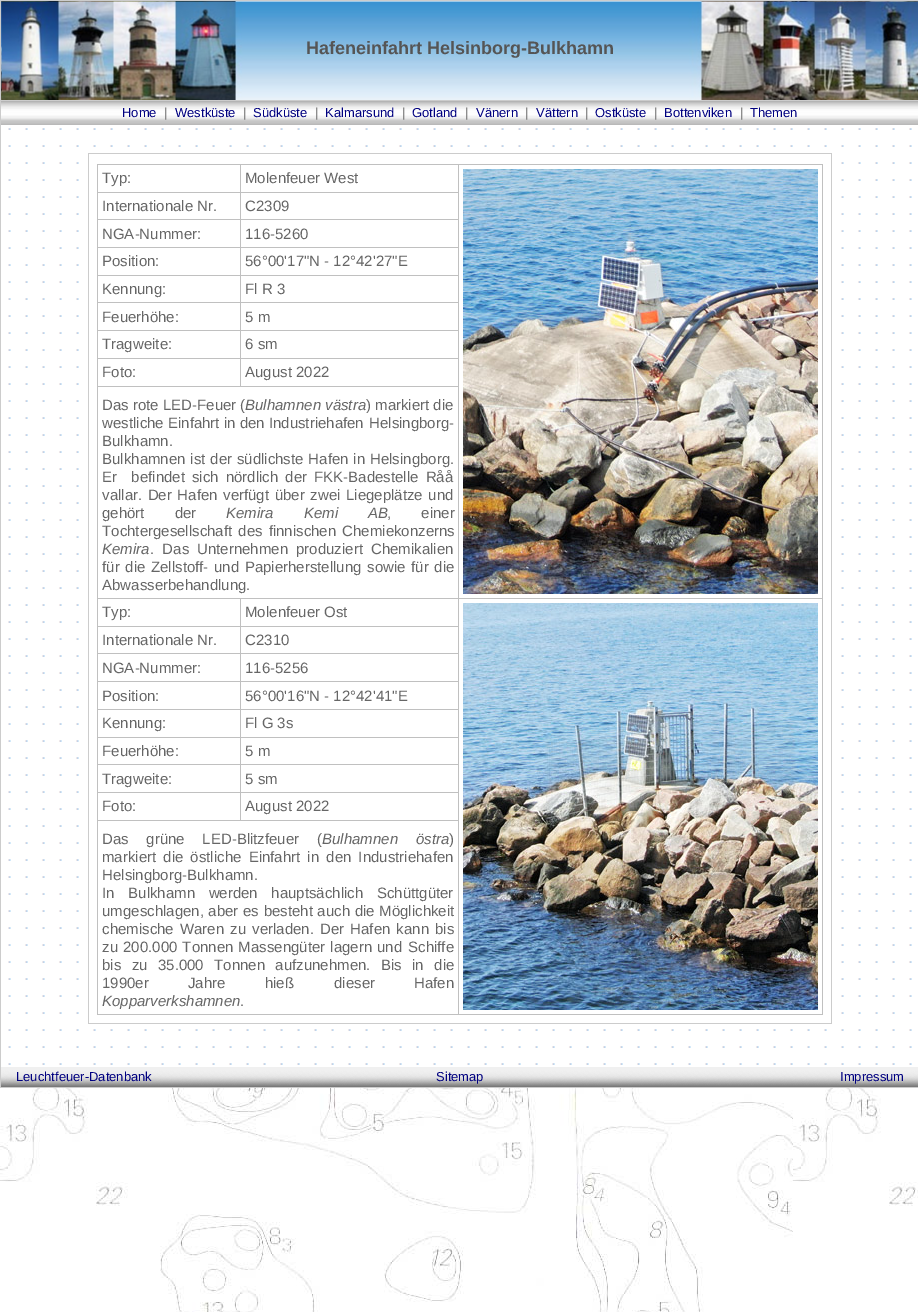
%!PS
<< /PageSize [918 1312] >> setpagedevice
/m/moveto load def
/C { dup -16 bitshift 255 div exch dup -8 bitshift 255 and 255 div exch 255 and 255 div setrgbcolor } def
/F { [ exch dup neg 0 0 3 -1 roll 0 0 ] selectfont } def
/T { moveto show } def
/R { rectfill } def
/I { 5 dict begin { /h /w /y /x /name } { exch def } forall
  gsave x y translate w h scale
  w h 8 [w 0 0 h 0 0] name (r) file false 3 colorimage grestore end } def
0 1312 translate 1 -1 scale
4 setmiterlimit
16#FFFFFF C
0 0 918 1312 R
(1.rgb) 0 1088 918 224 I
(2.rgb) 8 128 904 937 I
16#CCCCCC C
0 0 918 1 R
0 1087 918 1 R
0 0 1 1088 R
(3.rgb) 1 1 917 99 I
/LiberationSans-Bold 18 F
16#555555 C
(Hafeneinfahrt Helsinborg-Bulkhamn) 306 54 T
16#CCCCCC C
0 100 918 1 R
(4.rgb) 1 101 917 24 I
/LiberationSans-Regular 13 F
16#000080 C
(Home) 122 117 T
16#666666 C
(|) 164 117 T
16#000080 C
(Westküste) 175 117 T
16#666666 C
(|) 243 117 T
16#000080 C
(Südküste) 253 117 T
16#666666 C
(|) 315 117 T
16#000080 C
(Kalmarsund) 325 117 T
16#666666 C
(|) 402 117 T
16#000080 C
(Gotland) 412 117 T
16#666666 C
(|) 465 117 T
16#000080 C
(Vänern) 476 117 T
16#666666 C
(|) 525 117 T
16#000080 C
(Vättern) 536 117 T
16#666666 C
(|) 585 117 T
16#000080 C
(Ostküste) 595 117 T
16#666666 C
(|) 654 117 T
16#000080 C
(Bottenviken) 664 117 T
16#666666 C
(|) 740 117 T
16#000080 C
(Themen) 750 117 T
16#FFFFFF C
92 162 735 852 R
16#CCCCCC C
88 153 744 1 R
831 153 1 871 R
88 1023 744 1 R
88 153 1 871 R
16#C0C0C0 C
97 164 726 1 R
822 164 1 851 R
97 1014 726 1 R
97 164 1 851 R
/LiberationSans-Regular 15 F
16#666666 C
(Typ:) 102 183 T
16#C0C0C0 C
240 192 219 1 R
240 219 219 1 R
240 247 219 1 R
240 275 219 1 R
240 302 219 1 R
240 330 219 1 R
240 358 219 1 R
97 386 362 1 R
240 358 1 29 R
97 358 144 1 R
240 330 1 29 R
97 330 144 1 R
240 302 1 29 R
97 302 144 1 R
240 275 1 28 R
97 275 144 1 R
240 247 1 29 R
97 247 144 1 R
240 219 1 29 R
97 219 144 1 R
240 192 1 28 R
97 192 144 1 R
240 164 1 29 R
16#666666 C
(Molenfeuer West) 245 183 T
16#C0C0C0 C
458 598 365 1 R
240 626 219 1 R
240 653 219 1 R
240 681 219 1 R
240 709 219 1 R
240 737 219 1 R
240 764 219 1 R
240 792 219 1 R
97 820 362 1 R
458 598 1 417 R
240 598 219 1 R
458 164 1 435 R
(5.rgb) 463 169 355 425 I
16#666666 C
(Internationale Nr.) 102 211 T
(C2309) 245 211 T
(NGA-Nummer:) 102 239 T
(116-5260) 245 239 T
(Position:) 102 266 T
(56°00'17"N - 12°42'27"E) 245 266 T
(Kennung:) 102 294 T
(Fl R 3) 245 294 T
(Feuerhöhe:) 102 322 T
(5 m) 245 322 T
(Tragweite:) 102 349 T
(6 sm) 245 349 T
(Foto:) 102 377 T
(August 2022) 245 377 T
(Das rote LED-Feuer \() 102 410 T
/LiberationSans-Italic 15 F
(Bulhamnen västra) 245 410 T
/LiberationSans-Regular 15 F
(\) markiert die) 366 410 T
(westliche Einfahrt in den Industriehafen) 102 428 T
(Helsingborg-) 369 428 T
(Bulkhamn.) 102 446 T
102 464 m .75 0 32 (Bulkhamnen ist der südlichste Hafen in Helsingborg.) widthshow
102 482 m 3 0 32 (Er  befindet sich nördlich der FKK-Badestelle Råå) widthshow
102 500 m 1.5 0 32 (vallar. Der Hafen) widthshow
223 500 m 1.5 0 32 (verfügt über zwei Liegeplätze und) widthshow
102 518 m 26 0 32 (gehört der) widthshow
/LiberationSans-Italic 15 F
226 518 m 26 0 32 (Kemira Kemi AB) widthshow
/LiberationSans-Regular 15 F
387 518 m 26 0 32 (, einer) widthshow
102 536 m 2 0 32 (Tochtergesellschaft des finnischen Chemiekonzerns) widthshow
/LiberationSans-Italic 15 F
(Kemira) 102 554 T
/LiberationSans-Regular 15 F
150 554 m 4 0 32 (. Das) widthshow
197 554 m 4 0 32 (Unternehmen produziert Chemikalien) widthshow
102 572 m 1.5 0 32 (für die Zellstoff- und Papierherstellung) widthshow
367 572 m 1.5 0 32 (sowie für die) widthshow
(Abwasserbehandlung.) 102 590 T
16#C0C0C0 C
240 792 1 29 R
97 792 144 1 R
240 764 1 29 R
97 764 144 1 R
240 737 1 28 R
97 737 144 1 R
240 709 1 29 R
97 709 144 1 R
240 681 1 29 R
97 681 144 1 R
240 653 1 29 R
97 653 144 1 R
240 626 1 28 R
97 626 144 1 R
240 598 1 29 R
97 598 144 1 R
16#666666 C
(Typ:) 102 617 T
(Molenfeuer Ost) 245 617 T
(6.rgb) 463 603 355 407 I
(Internationale Nr.) 102 645 T
(C2310) 245 645 T
(NGA-Nummer:) 102 673 T
(116-5256) 245 673 T
(Position:) 102 701 T
(56°00'16"N - 12°42'41"E) 245 701 T
(Kennung:) 102 728 T
(Fl G 3s) 245 728 T
(Feuerhöhe:) 102 756 T
(5 m) 245 756 T
(Tragweite:) 102 784 T
(5 sm) 245 784 T
(Foto:) 102 811 T
(August 2022) 245 811 T
102 844 m 13.5 0 32 (Das grüne LED-Blitzfeuer \() widthshow
/LiberationSans-Italic 15 F
(Bulhamnen) 322 844 T
(östra) 416 844 T
/LiberationSans-Regular 15 F
(\)) 449 844 T
102 862 m 3 0 32 (markiert die östliche Einfahrt in den Industriehafen) widthshow
(Helsingborg-Bulkhamn.) 102 880 T
102 898 m 9.5 0 32 (In Bulkhamn werden hauptsächlich Schüttgüter) widthshow
102 916 m .5 0 32 (umgeschlagen, aber es besteht auch die Möglichkeit) widthshow
102 934 m 2 0 32 (chemische Waren zu) widthshow
252 934 m 2 0 32 (verladen. Der Hafen kann bis) widthshow
102 952 m 1 0 32 (zu 200.000 Tonnen Massengüter lagern und) widthshow
(Schiffe) 408 952 T
102 970 m 6.25 0 32 (bis zu 35.000 Tonnen aufzunehmen. Bis in die) widthshow
102 988 m 35 0 32 (1990er Jahre hieß) widthshow
334 988 m 35 0 32 (dieser Hafen) widthshow
/LiberationSans-Italic 15 F
(Kopparverkshamnen) 102 1006 T
/LiberationSans-Regular 15 F
(.) 240 1006 T
(7.rgb) 1 1067 184 20 I
/LiberationSans-Regular 13 F
16#000080 C
(Leuchtfeuer-Datenbank) 16 1081 T
(8.rgb) 185 1067 550 20 I
(Sitemap) 436 1081 T
(9.rgb) 735 1067 183 20 I
(Impressum) 840 1081 T
showpage
